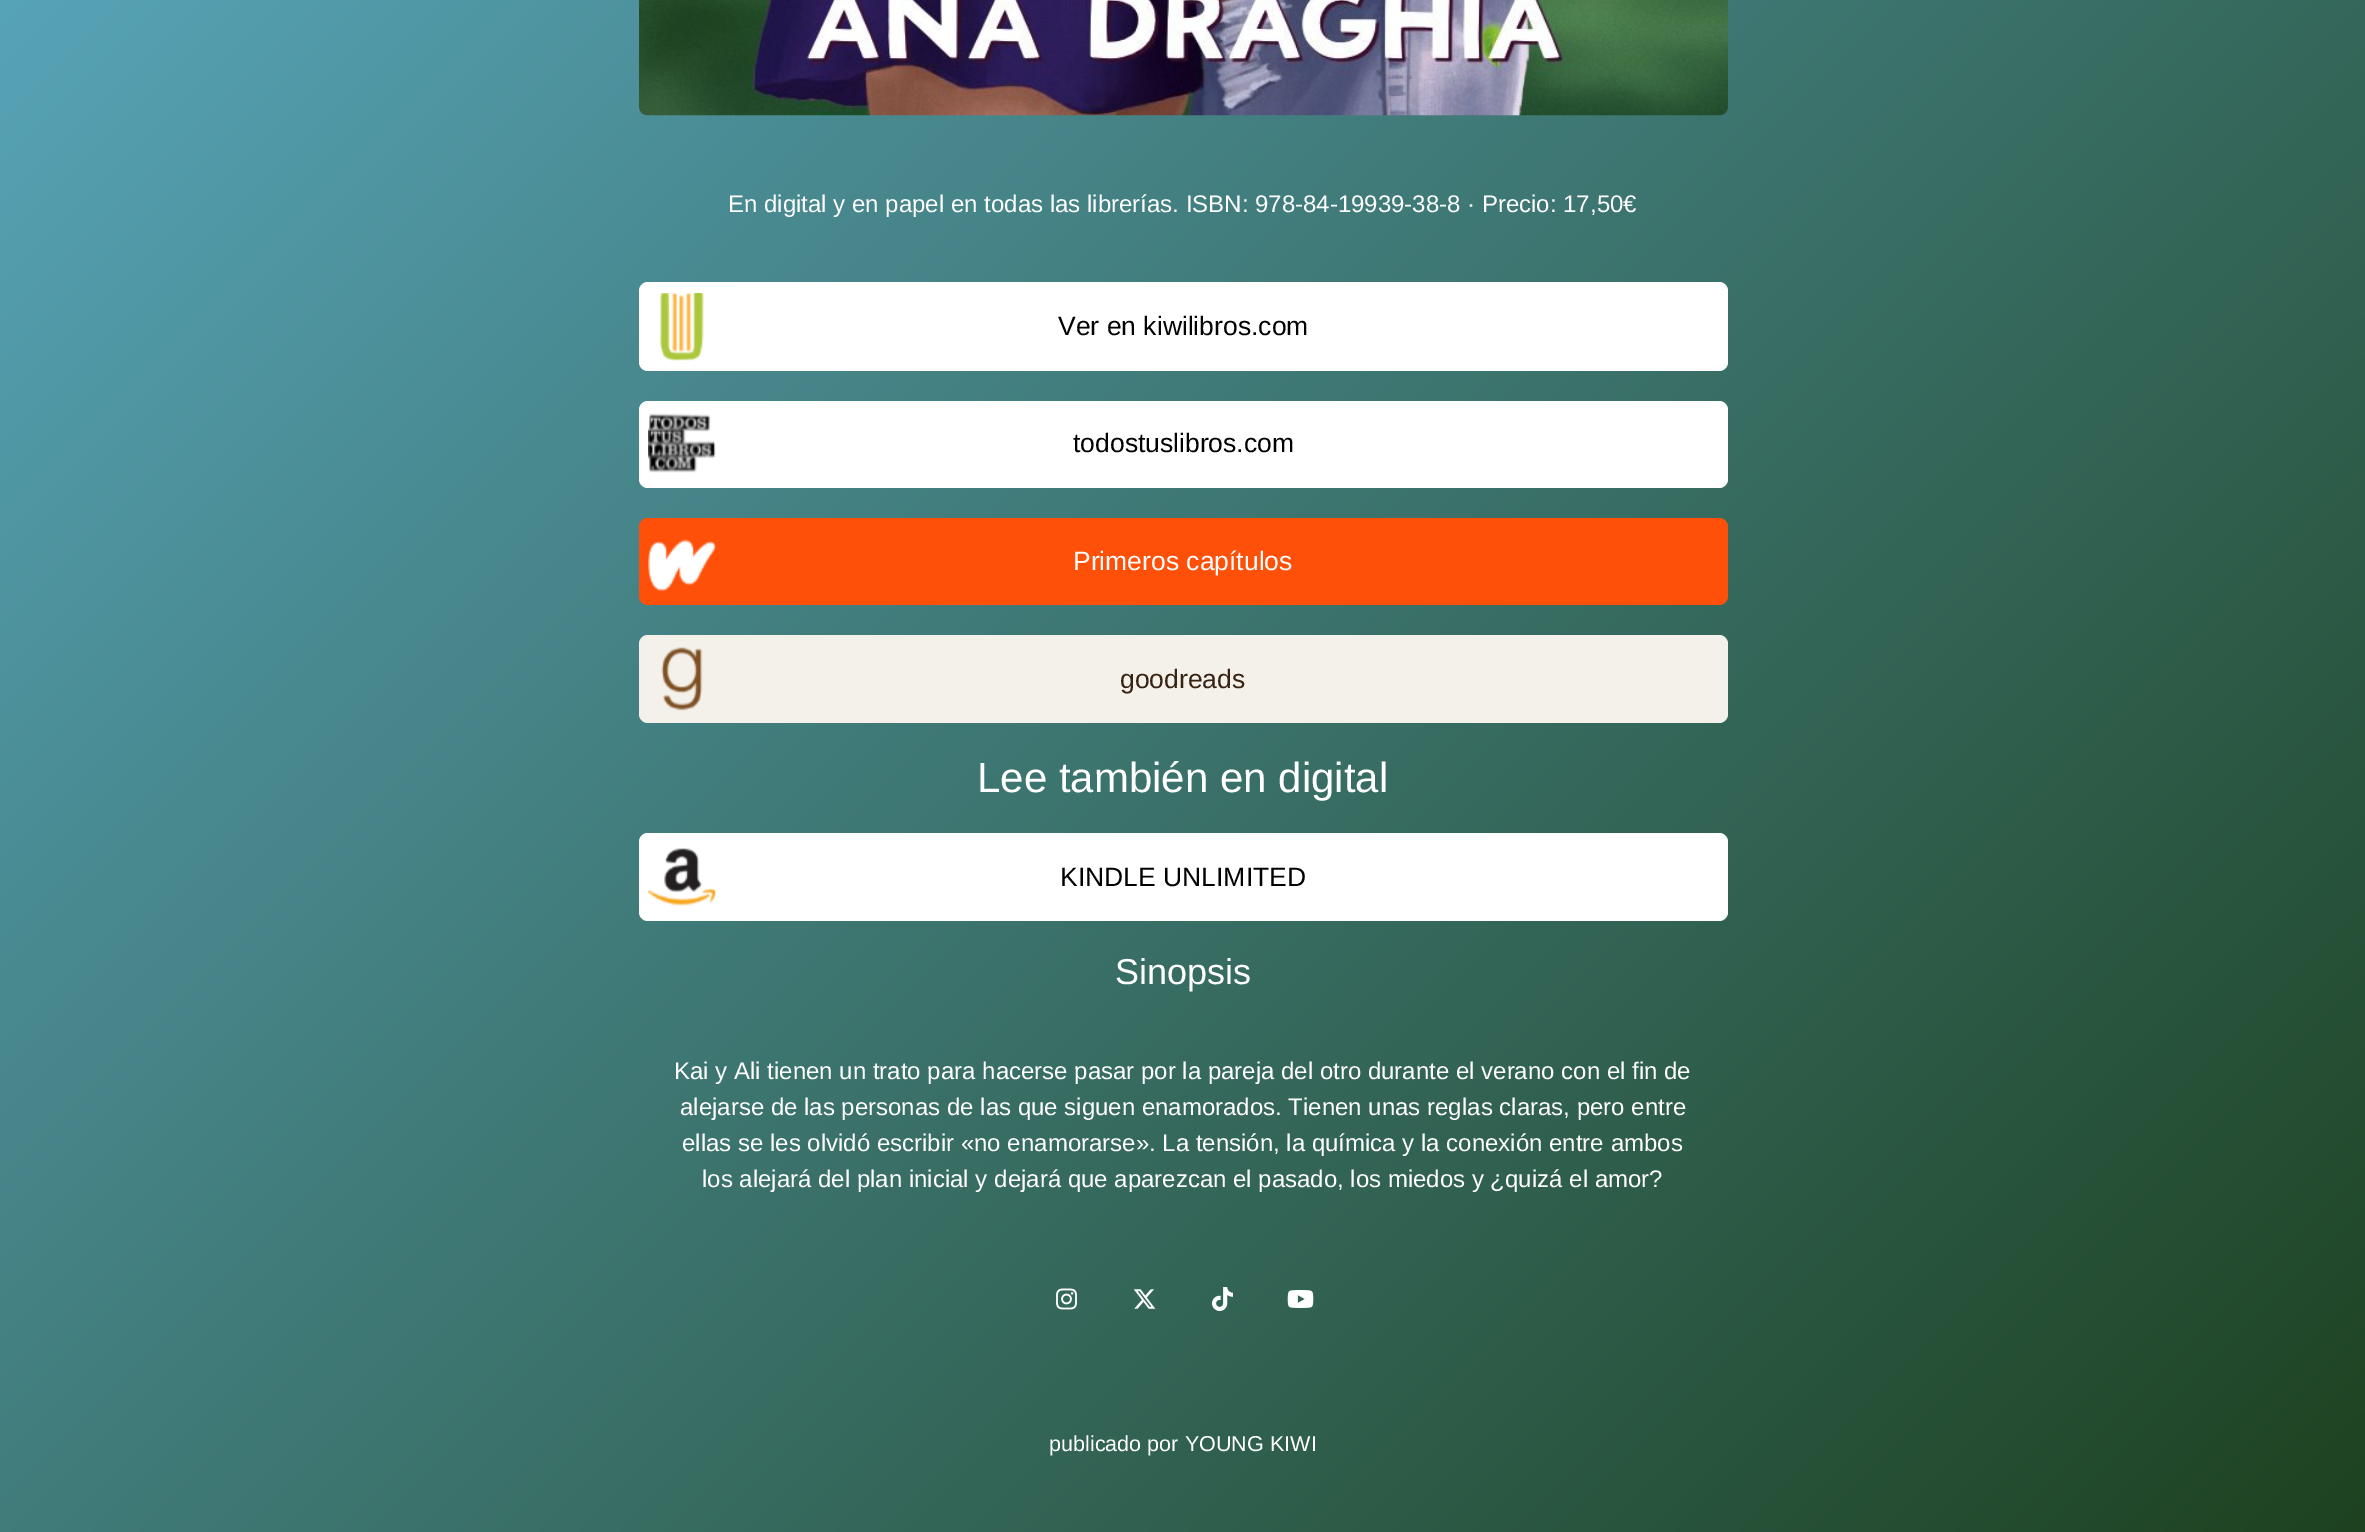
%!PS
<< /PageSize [2365 1532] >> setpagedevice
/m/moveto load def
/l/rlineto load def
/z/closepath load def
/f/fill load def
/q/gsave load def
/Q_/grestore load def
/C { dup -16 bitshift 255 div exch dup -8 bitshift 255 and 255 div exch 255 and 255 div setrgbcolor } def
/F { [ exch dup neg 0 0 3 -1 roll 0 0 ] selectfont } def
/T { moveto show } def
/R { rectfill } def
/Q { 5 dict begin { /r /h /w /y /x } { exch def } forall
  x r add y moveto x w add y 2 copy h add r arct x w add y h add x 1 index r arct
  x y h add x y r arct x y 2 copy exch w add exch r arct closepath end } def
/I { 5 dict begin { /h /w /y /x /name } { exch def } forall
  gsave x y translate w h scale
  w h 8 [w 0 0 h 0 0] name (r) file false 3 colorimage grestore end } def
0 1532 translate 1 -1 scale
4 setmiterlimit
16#FFFFFF C
0 0 2365 1532 R
q 0 0 m 2365 0 l 0 1532 l -2365 0 l z clip newpath
<< /ShadingType 2 /ColorSpace /DeviceRGB /Coords [-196 -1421 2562 1337] /Extend [true true] /Function << /FunctionType 3 /Domain [0 1] /Functions [<< /FunctionType 2 /Domain [0 1] /C0 [.404 .741 .878] /C1 [.404 .741 .878] /N 1 >> << /FunctionType 2 /Domain [0 1] /C0 [.404 .741 .878] /C1 [.118 .259 .125] /N 1 >>] /Bounds [.1] /Encode [0 1 0 1] >> >> shfill Q_
(1.rgb) 639 0 1089 116 I
/LiberationSans-Regular 24 F
(En digital y en papel en todas las librerías. ISBN: 978-84-19939-38-8 · Precio: 17,50€) 728 212 T
639 282 1089 89 9 Q f
(2.rgb) 659 293 45 68 I
/LiberationSans-Regular 26.5 F
16#000000 C
(Ver en kiwilibros.com) 1058 335 T
16#FFFFFF C
639 401 1089 87 9 Q f
(3.rgb) 648 413 68 60 I
16#000000 C
(todostuslibros.com) 1073 452 T
16#FE5009 C
639 518 1089 87 9 Q f
(4.rgb) 648 539 68 53 I
16#FFFFFF C
(Primeros capítulos) 1073 570 T
16#F4F1EA C
639 635 1089 88 9 Q f
(5.rgb) 661 647 42 64 I
16#372213 C
(goodreads) 1120 688 T
/LiberationSans-Regular 42 F
16#FFFFFF C
(Lee también en digital) 977 792 T
639 833 1089 88 9 Q f
(6.rgb) 648 848 68 58 I
/LiberationSans-Regular 26.5 F
16#000000 C
(KINDLE UNLIMITED) 1060 886 T
/LiberationSans-Regular 36 F
16#FFFFFF C
(Sinopsis) 1115 984 T
/LiberationSans-Regular 24 F
(Kai y Ali tienen un trato para hacerse pasar por la pareja del otro durante el verano con el fin de) 674 1079 T
(alejarse de las personas de las que siguen enamorados. Tienen unas reglas claras, pero entre) 680 1115 T
(ellas se les olvidó escribir «no enamorarse». La tensión, la química y la conexión entre ambos) 682 1151 T
(los alejará del plan inicial y dejará que aparezcan el pasado, los miedos y ¿quizá el amor?) 702 1187 T
(7.rgb) 1056 1288 21 22 I
(8.rgb) 1133 1289 23 20 I
(9.rgb) 1212 1287 21 24 I
(10.rgb) 1287 1290 27 18 I
/LiberationSans-Regular 21.6 F
(publicado por YOUNG KIWI) 1049 1451 T
showpage
